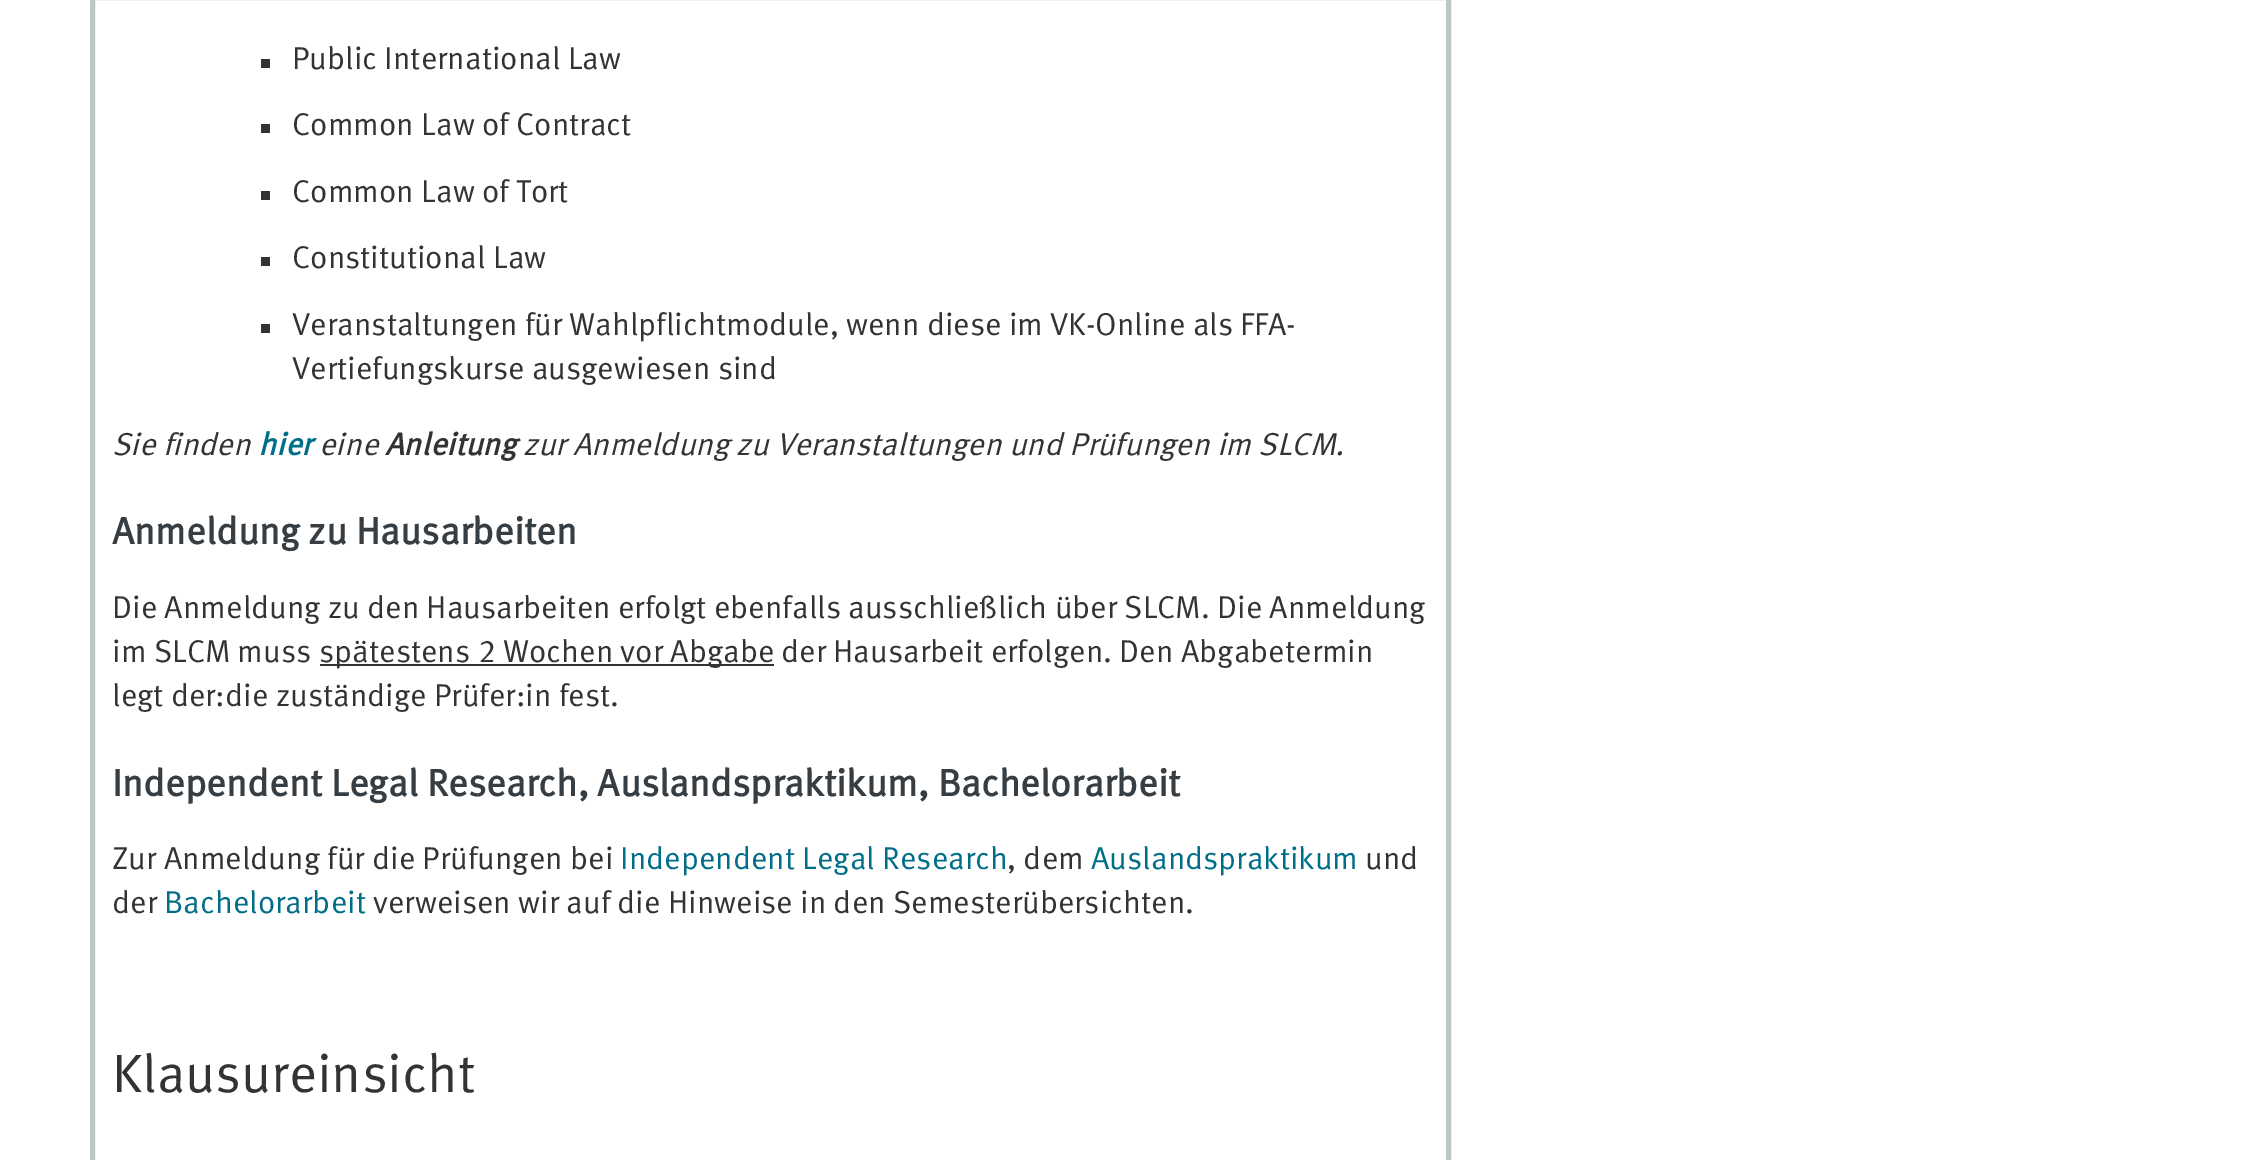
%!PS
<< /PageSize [2244 1160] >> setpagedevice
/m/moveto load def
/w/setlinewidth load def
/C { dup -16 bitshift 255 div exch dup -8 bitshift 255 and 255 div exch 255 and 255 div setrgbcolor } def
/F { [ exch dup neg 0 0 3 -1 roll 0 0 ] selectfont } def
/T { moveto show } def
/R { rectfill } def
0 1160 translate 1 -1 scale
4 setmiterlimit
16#FFFFFF C
0 0 2244 1160 R
16#BEC6C8 C
5 w
92.5 -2.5 1356 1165 rectstroke
16#333333 C
261 59 9 9 R
/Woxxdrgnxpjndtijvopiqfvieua-Regular 31.65 F
(Public International Law) 292 69 T
261 124 9 9 R
(Common Law of Contract) 292 135 T
261 191 9 9 R
(Common Law of Tort) 292 202 T
261 257 9 9 R
(Constitutional Law) 292 268 T
261 324 9 9 R
292 335 m -.25 0 32 (Veranstaltungen für Wahlpflichtmodule, wenn diese im VK-Online als FFA-) widthshow
(Vertiefungskurse ausgewiesen sind) 292 379 T
/Woxxdrgnxpjndtijvopiqfvieua-Italic 31.65 F
(Sie finden) 112 455 T
/Woxxdrgnxpjndtijvopiqfvieua-BoldItalic 31.65 F
16#006E89 C
(hier) 258 455 T
/Woxxdrgnxpjndtijvopiqfvieua-Italic 31.65 F
16#333333 C
(eine) 319 455 T
/Woxxdrgnxpjndtijvopiqfvieua-BoldItalic 31.65 F
(Anleitung) 385 455 T
/Woxxdrgnxpjndtijvopiqfvieua-Italic 31.65 F
(zur Anmeldung zu Veranstaltungen und Prüfungen im SLCM.) 523 455 T
/Woxxdrgnxpjndtijvopiqfvieua-Bold 38 F
16#363D43 C
(Anmeldung zu Hausarbeiten) 112 544 T
/Woxxdrgnxpjndtijvopiqfvieua-Regular 31.65 F
16#333333 C
112 618 m -.1 0 32 (Die Anmeldung zu den Hausarbeiten erfolgt ebenfalls ausschließlich über SLCM. Die Anmeldung) widthshow
(im SLCM muss) 112 662 T
320 664 454 2 R
(spätestens 2 Wochen vor Abgabe) 319 662 T
(der Hausarbeit erfolgen. Den Abgabetermin) 781 662 T
(legt der:die zuständige Prüfer:in fest.) 112 706 T
/Woxxdrgnxpjndtijvopiqfvieua-Bold 38 F
16#363D43 C
(Independent Legal Research, Auslandspraktikum, Bachelorarbeit) 112 796 T
/Woxxdrgnxpjndtijvopiqfvieua-Regular 31.65 F
16#333333 C
(Zur Anmeldung für die Prüfungen bei) 112 869 T
16#006E89 C
(Independent Legal Research) 620 869 T
16#333333 C
(, dem) 1007 869 T
16#006E89 C
(Auslandspraktikum) 1091 869 T
16#333333 C
(und) 1365 869 T
(der) 112 913 T
16#006E89 C
(Bachelorarbeit) 164 913 T
16#333333 C
373 913 m -.1 0 32 (verweisen wir auf die Hinweise in den Semesterübersichten.) widthshow
/Woxxdrgnxpjndtijvopiqfvieua-Regular 54 F
(Klausureinsicht) 112 1092 T
showpage
